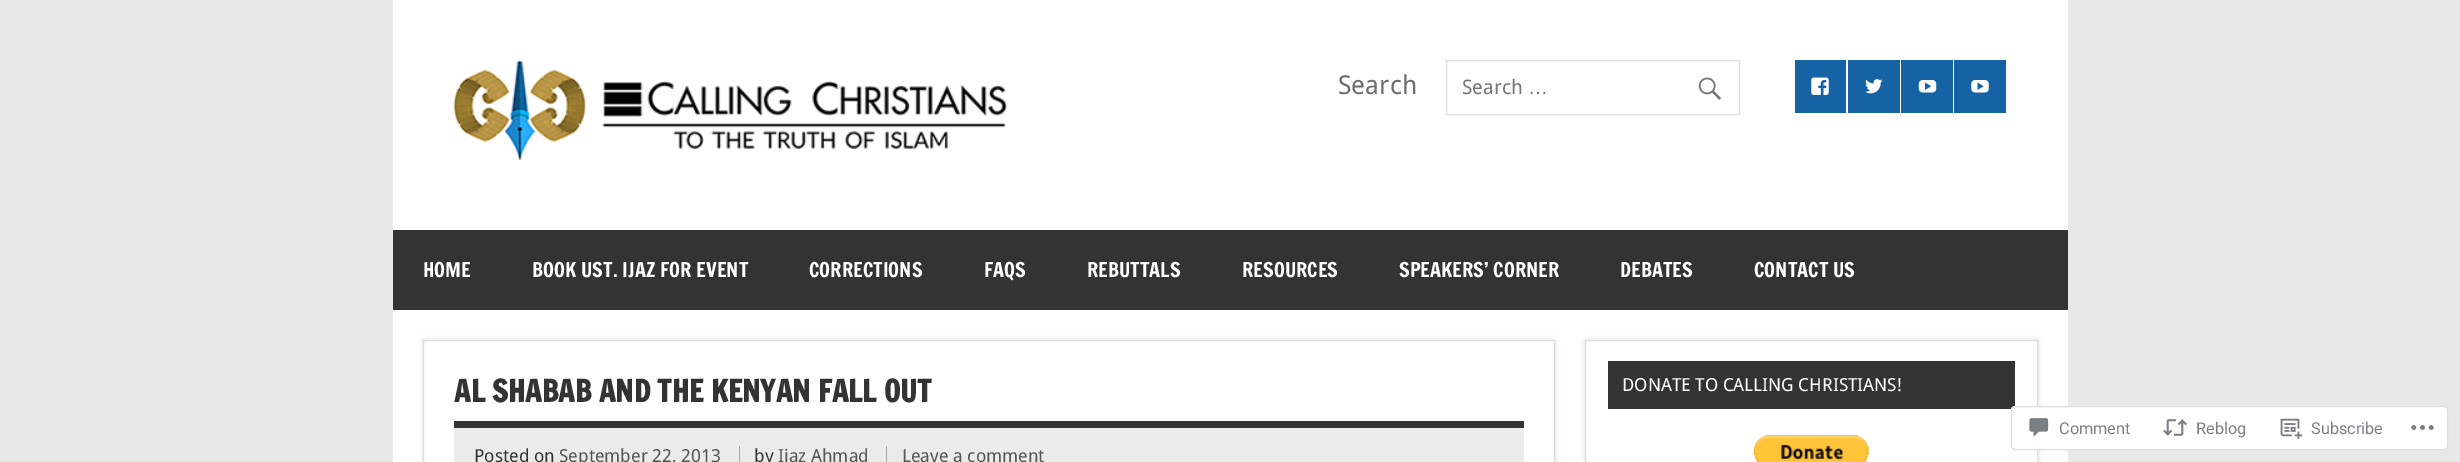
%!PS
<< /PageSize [2460 462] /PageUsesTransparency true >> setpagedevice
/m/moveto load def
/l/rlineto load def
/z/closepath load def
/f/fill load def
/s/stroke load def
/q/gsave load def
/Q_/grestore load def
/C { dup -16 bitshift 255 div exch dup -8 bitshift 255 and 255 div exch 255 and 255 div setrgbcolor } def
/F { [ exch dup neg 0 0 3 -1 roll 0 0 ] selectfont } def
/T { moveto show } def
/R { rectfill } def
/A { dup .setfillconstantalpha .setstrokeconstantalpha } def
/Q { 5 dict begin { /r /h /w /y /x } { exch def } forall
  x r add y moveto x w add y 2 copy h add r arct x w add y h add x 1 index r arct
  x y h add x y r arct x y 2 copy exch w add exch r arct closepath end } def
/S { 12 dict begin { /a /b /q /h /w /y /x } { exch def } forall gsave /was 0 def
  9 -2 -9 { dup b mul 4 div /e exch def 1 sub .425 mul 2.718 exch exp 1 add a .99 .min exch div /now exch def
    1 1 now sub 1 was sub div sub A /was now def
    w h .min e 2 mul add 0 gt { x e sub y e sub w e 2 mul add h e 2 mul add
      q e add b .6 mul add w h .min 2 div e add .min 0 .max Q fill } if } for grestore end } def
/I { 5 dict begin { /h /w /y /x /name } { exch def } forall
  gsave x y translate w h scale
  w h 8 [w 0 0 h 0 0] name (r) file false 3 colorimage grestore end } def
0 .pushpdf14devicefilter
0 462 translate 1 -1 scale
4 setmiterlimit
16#E8E8E8 C
0 0 2460 462 R
16#FFFFFF C
393 0 1675 462 R
(1.rgb) 453 60 554 100 I
/DroidSans-Regular 26 F
16#6D6D6D C
(Search) 1338 94 T
16#DDDDDD C
1446.5 60.5 293 54 rectstroke
/DroidSans-Regular 20 F
16#757575 C
(Search) 1462 94 T
/LiberationSans-Regular 20 F
(…) 1528 94 T
(2.rgb) 1698 77 24 23 I
16#1562A5 C
1795 60 51 53 R
(3.rgb) 1811 77 18 18 I
1848 60 52 53 R
(4.rgb) 1865 79 18 15 I
1901 60 52 53 R
(5.rgb) 1918 80 19 13 I
1954 60 52 53 R
(6.rgb) 1971 80 18 13 I
16#333333 C
393 230 1675 80 R
/FrancoisOne-Regular 20 F
16#FFFFFF C
(HOME) 423 277 T
(BOOK UST. IJAZ FOR EVENT) 532 277 T
(CORRECTIONS) 809 277 T
(FAQS) 984 277 T
(REBUTTALS) 1087 277 T
(RESOURCES) 1242 277 T
(SPEAKERS’ CORNER) 1399 277 T
(DEBATES) 1620 277 T
(CONTACT US) 1754 277 T
q
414 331 m 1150 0 l 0 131 l -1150 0 l z 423 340 m 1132 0 l 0 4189 l -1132 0 l z eoclip newpath
16#DDDDDD C
423 340 1132 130 0 2.5 1 S
Q_
16#DDDDDD C
423.5 340.5 1131 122 rectstroke
16#333333 C
454 421 1070 7 R
/FrancoisOne-Bold 30 F
(AL SHABAB AND THE KENYAN FALL OUT) 454 402 T
16#EBEBEB C
454 428 1070 34 R
/DroidSans-Regular 18 F
16#333333 C
(Posted on) 474 462 T
16#555555 C
(September 22, 2013) 559 462 T
16#333333 C
(by) 754 462 T
16#AAAAAA C
739 446 1 16 R
16#555555 C
(Ijaz Ahmad) 778 462 T
(Leave a comment) 902 462 T
16#AAAAAA C
886 446 1 16 R
16#DDDDDD C
1585 340 453 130 0 2.5 1 S
16#FFFFFF C
1585.5 340.5 m 452 0 l 0 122 l -452 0 l z q f Q_
16#DDDDDD C
s
16#333333 C
1608 361 407 48 R
16#FFFFFF C
(DONATE TO CALLING CHRISTIANS!) 1622 391 T
(7.rgb) 1753 435 116 27 I
0.98 A
2011 406 437 44 4 Q f
16#DCDCDE C
2011.5 406.5 436 43 3.5 Q s
1 A
(8.rgb) 2029 418 20 19 I
/Roboto-Regular 16.25 F
16#7B7F84 C
(Comment) 2059 434 T
(9.rgb) 2163 419 24 17 I
(Reblog) 2196 434 T
(10.rgb) 2280 418 23 22 I
(Subscribe) 2311 434 T
(11.rgb) 2411 425 23 5 I
.poppdf14devicefilter showpage
